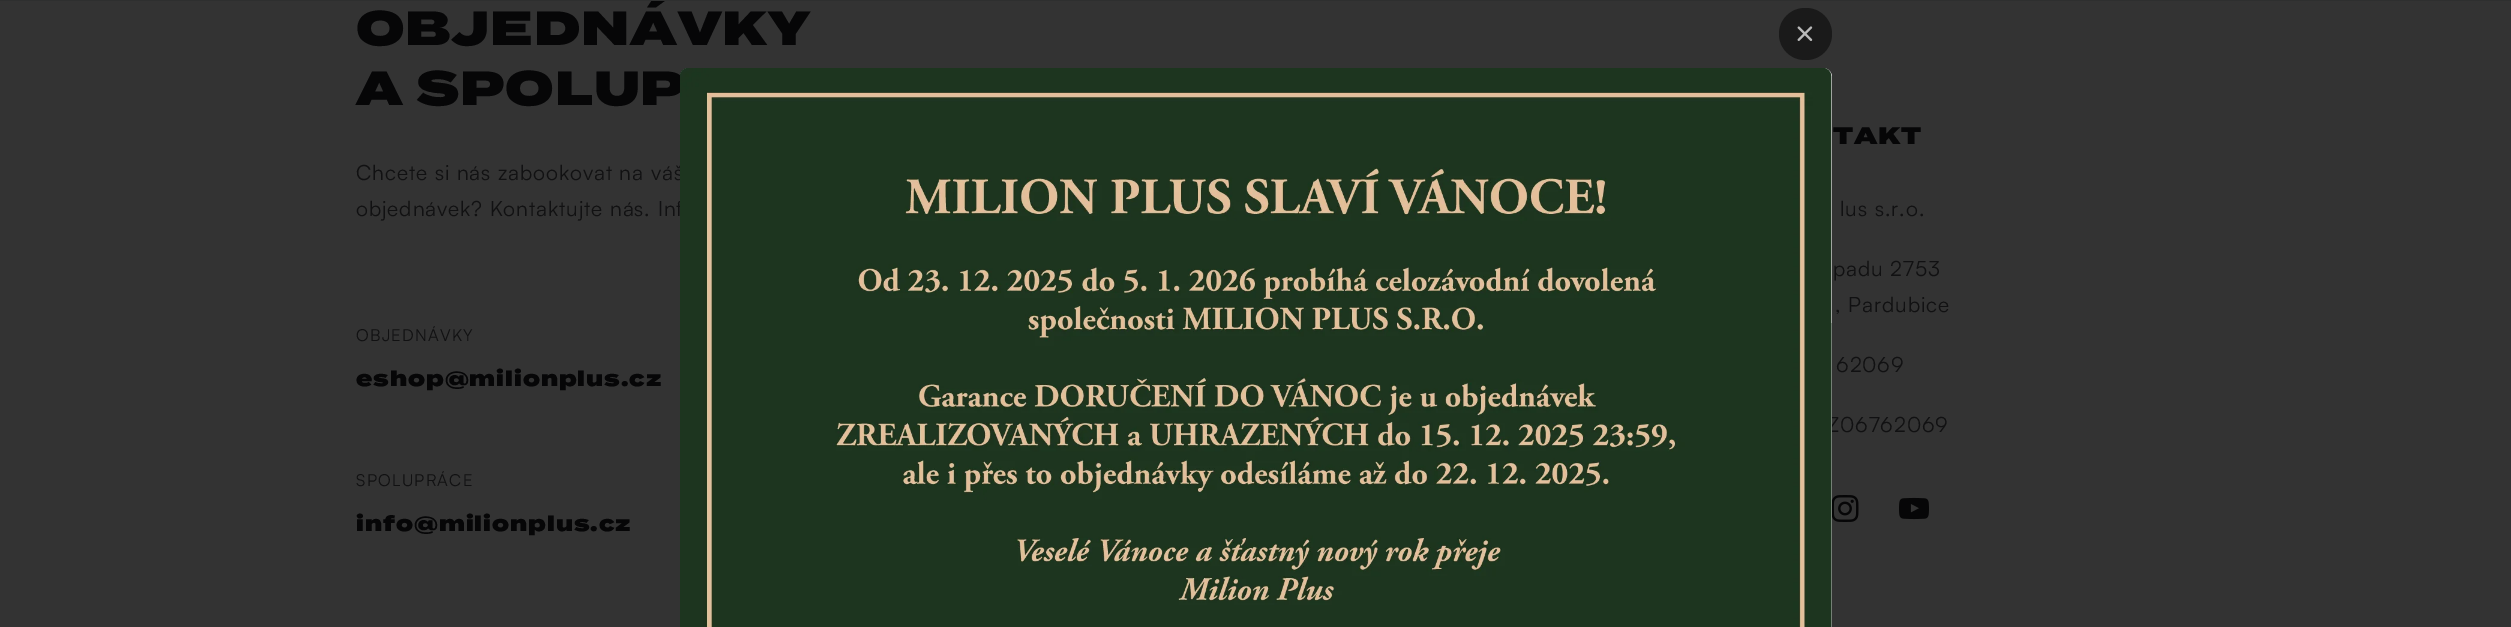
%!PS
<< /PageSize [2511 627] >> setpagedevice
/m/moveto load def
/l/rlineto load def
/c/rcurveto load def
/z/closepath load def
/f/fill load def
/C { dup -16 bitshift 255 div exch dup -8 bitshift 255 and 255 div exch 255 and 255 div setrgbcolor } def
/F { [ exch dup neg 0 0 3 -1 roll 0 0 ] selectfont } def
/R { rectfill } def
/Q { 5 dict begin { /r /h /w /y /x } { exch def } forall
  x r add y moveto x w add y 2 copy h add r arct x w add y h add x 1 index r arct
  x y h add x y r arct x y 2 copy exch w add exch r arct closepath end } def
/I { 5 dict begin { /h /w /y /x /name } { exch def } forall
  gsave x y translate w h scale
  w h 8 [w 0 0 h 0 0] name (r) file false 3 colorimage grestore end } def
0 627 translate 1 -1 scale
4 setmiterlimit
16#333333 C
0 0 2511 627 R
/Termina-Black 48 F
16#060607 C
356 45 m .9 0 (OBJEDNÁVKY) ashow
16#2E2F2F C
0 0 2511 1 R
16#060607 C
356 105 m .9 0 (A SPOLUP) ashow
/Satoshi-Regular 21 F
16#111112 C
356 180 m .9 0 (Chcete si nás zabookovat na váš) ashow
356 216 m .9 0 (objednávek? Kontaktujte nás. Inf) ashow
/Satoshi-Regular 16.5 F
356 341 m 1.25 0 (OBJEDNÁVKY) ashow
/Termina-Black 21 F
16#060607 C
356 386 m .9 0 (eshop@milionplus.cz) ashow
/Satoshi-Regular 16.5 F
16#111112 C
356 486 m 1.25 0 (SPOLUPRÁCE) ashow
/Termina-Black 21 F
16#060607 C
356 531 m .9 0 (info@milionplus.cz) ashow
/Termina-Black 24 F
1833 144 m .9 0 (TAKT) ashow
/Satoshi-Regular 21 F
16#111112 C
1840 216 m .9 0 (lus s.r.o.) ashow
1833 276 m .9 0 (padu 2753) ashow
1835 312 m .9 0 (, Pardubice) ashow
1836 372 m .9 0 (62069) ashow
1827 432 m .9 0 (Z06762069) ashow
(1.rgb) 1832 495 27 27 I
(2.rgb) 1899 497 30 23 I
16#1A1A1A C
1779 8 53 52 26 Q f
(3.rgb) 1797 26 16 15 I
16#CCCCCC C
689 68 m 1134 0 l 5 0 9 4 9 9 c 0 550 l -1152 0 l 0 -550 l 0 -5 4 -9 9 -9 c z f
(4.rgb) 680 68 1152 559 I
showpage
